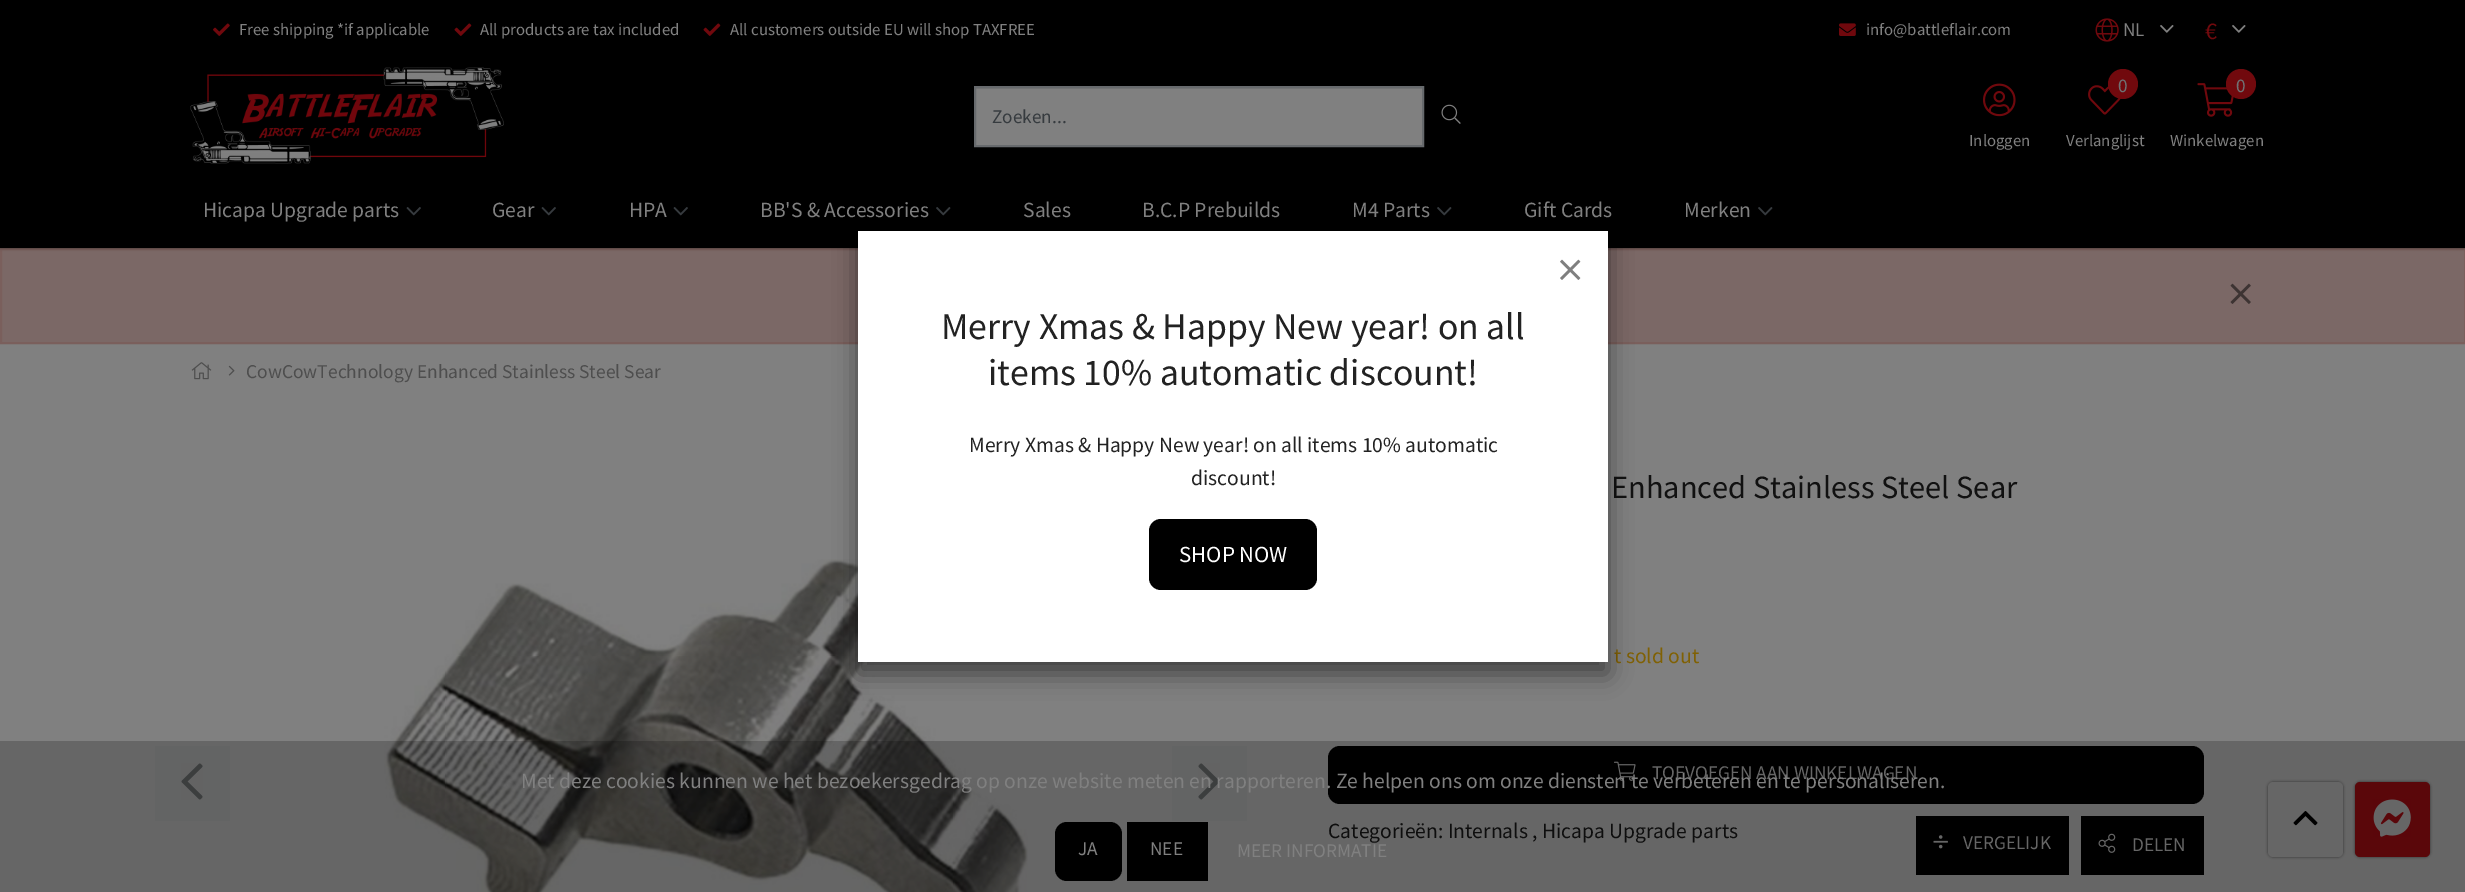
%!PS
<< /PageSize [2465 892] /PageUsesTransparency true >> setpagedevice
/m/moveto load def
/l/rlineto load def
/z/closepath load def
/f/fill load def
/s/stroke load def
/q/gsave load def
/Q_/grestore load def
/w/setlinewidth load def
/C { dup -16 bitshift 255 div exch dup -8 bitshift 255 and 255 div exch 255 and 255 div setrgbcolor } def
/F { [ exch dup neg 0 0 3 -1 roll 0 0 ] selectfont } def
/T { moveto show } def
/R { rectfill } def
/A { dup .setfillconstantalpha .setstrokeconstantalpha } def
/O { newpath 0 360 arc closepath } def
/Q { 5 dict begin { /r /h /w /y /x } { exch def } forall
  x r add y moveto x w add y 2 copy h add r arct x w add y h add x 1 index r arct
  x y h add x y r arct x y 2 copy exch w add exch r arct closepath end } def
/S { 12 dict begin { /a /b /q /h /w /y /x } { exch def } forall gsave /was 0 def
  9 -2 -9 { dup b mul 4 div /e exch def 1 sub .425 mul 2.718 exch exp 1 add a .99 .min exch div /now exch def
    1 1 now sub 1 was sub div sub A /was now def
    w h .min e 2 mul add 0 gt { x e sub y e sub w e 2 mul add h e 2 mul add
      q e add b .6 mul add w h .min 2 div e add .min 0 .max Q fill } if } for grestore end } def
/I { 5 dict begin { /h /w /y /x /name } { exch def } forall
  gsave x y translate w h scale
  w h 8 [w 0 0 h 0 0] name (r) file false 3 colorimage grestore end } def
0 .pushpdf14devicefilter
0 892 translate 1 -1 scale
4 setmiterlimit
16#808080 C
0 0 2465 892 R
16#7B6866 C
1 249 m 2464 0 l 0 94 l -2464 0 l z q f Q_
16#7A5F5C C
2 w
s
16#000000 C
0 0 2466 248 0 1.5 .5 S
0 0 2465 248 R
(1.rgb) 213 23 17 13 I
/SourceSansPro-Regular 16.75 F
16#808080 C
(Free shipping *if applicable) 239 35 T
(2.rgb) 454 23 18 13 I
(All products are tax included) 480 35 T
(2.rgb) 703 23 18 13 I
(All customers outside EU will shop TAXFREE) 730 35 T
(3.rgb) 1839 23 17 13 I
(info@battleflair.com) 1866 35 T
(4.rgb) 2095 18 24 24 I
/SourceSansPro-Regular 19.25 F
(NL) 2123 36 T
(5.rgb) 2160 25 14 8 I
/SourceSansPro-Regular 24 F
16#71090D C
(€) 2205 39 T
(5.rgb) 2232 25 14 8 I
(6.rgb) 190 67 314 97 I
16#808080 C
976 89 446 56 R
16#767676 C
975 88 447 1 R
16#676A6D C
975 87 448 59 rectstroke
/SourceSansPro-Regular 19.25 F
16#363B3F C
(Zoeken...) 992 123 T
(7.rgb) 1441 104 20 20 I
(8.rgb) 1983 83 33 34 I
/SourceSansPro-Regular 16.75 F
16#808080 C
(Inloggen) 1969 146 T
(9.rgb) 2088 85 33 30 I
16#71090D C
2123 84 15 O f
/SourceSansPro-Regular 19.25 F
16#6F7173 C
(0) 2118 92 T
/SourceSansPro-Regular 16.75 F
16#808080 C
(Verlanglijst) 2066 146 T
(10.rgb) 2197 83 37 34 I
16#71090D C
2241 84 15 O f
/SourceSansPro-Regular 19.25 F
16#6F7173 C
(0) 2236 92 T
/SourceSansPro-Regular 16.75 F
16#808080 C
(Winkelwagen) 2170 146 T
/SourceSansPro-Regular 21.6 F
(Hicapa Upgrade parts) 203 217 T
(11.rgb) 406 207 15 9 I
(Gear) 492 217 T
(11.rgb) 541 207 15 9 I
(HPA) 629 217 T
(11.rgb) 673 207 15 9 I
(BB'S & Accessories) 760 217 T
(12.rgb) 936 207 15 9 I
(Sales) 1023 217 T
(B.C.P Prebuilds) 1142 217 T
(M4 Parts) 1352 217 T
(12.rgb) 1437 207 15 9 I
(Gift Cards) 1524 217 T
(Merken) 1684 217 T
(12.rgb) 1758 207 15 9 I
(13.rgb) 2230 283 21 21 I
(14.rgb) 191 362 21 18 I
(15.rgb) 228 365 7 11 I
/SourceSansPro-Regular 19.5 F
16#4E4E4E C
(CowCowTechnology Enhanced Stainless Steel Sear) 246 378 T
(16.rgb) 384 559 644 333 I
16#7C7D7D C
155 746 75 75 R
(17.rgb) 181 763 22 37 I
1172 746 75 75 R
(18.rgb) 1198 763 22 37 I
/SourceSansPro-Regular 32.4 F
16#111111 C
(Enhanced Stainless Steel Sear) 1611 498 T
/SourceSansPro-Regular 21.6 F
16#806104 C
(t sold out) 1614 663 T
16#000000 C
1328 746 876 58 12 Q f
(19.rgb) 1614 761 22 20 I
/SourceSansPro-Regular 19.25 F
16#808080 C
(TOEVOEGEN AAN WINKELWAGEN) 1652 779 T
/SourceSansPro-Regular 21.6 F
16#111111 C
(Categorieën: Internals , Hicapa Upgrade parts) 1328 838 T
16#000000 C
1916 816 153 59 R
(20.rgb) 1933 835 15 14 I
/SourceSansPro-Regular 19.25 F
16#808080 C
(VERGELIJK) 1963 849 T
16#000000 C
2081 816 123 59 R
(21.rgb) 2098 833 18 20 I
16#808080 C
(DELEN) 2132 851 T
16#000000 C
858 243 750 431 0 12 .5 S
16#FFFFFF C
858 231 750 431 R
(22.rgb) 1560 259 21 21 I
/SourceSansPro-Regular 37.75 F
16#222222 C
(Merry Xmas & Happy New year! on all) 941 339 T
(items 10% automatic discount!) 988 385 T
/SourceSansPro-Regular 21.6 F
(Merry Xmas & Happy New year! on all items 10% automatic) 969 452 T
(discount!) 1191 485 T
16#000000 C
1149 519 168 71 12 Q f
/SourceSansPro-Regular 23 F
16#FFFFFF C
(SHOP NOW) 1179 562 T
16#000000 C
2268 782 75 75 5 1.5 .5 S
16#808080 C
2268 782 75 75 5 Q f
(23.rgb) 2293 811 25 15 I
16#000000 C
2355 782 75 75 5 1.5 .5 S
16#71090D C
2355 782 75 75 5 Q f
(24.rgb) 2373 799 38 38 I
0.2 A
16#000000 C
0 741 2465 151 R
/SourceSansPro-Regular 21.6 F
1 A
16#808080 C
(Met deze cookies kunnen we het bezoekersgedrag op onze website meten en rapporteren. Ze helpen ons om onze diensten te verbeteren en te personaliseren.) 521 788 T
16#000000 C
1055 822 67 59 12 Q f
/SourceSansPro-Regular 19.25 F
16#808080 C
(JA) 1078 855 T
16#000000 C
1127 822 81 59 R
16#808080 C
(NEE) 1150 855 T
(MEER INFORMATIE) 1237 857 T
.poppdf14devicefilter showpage
